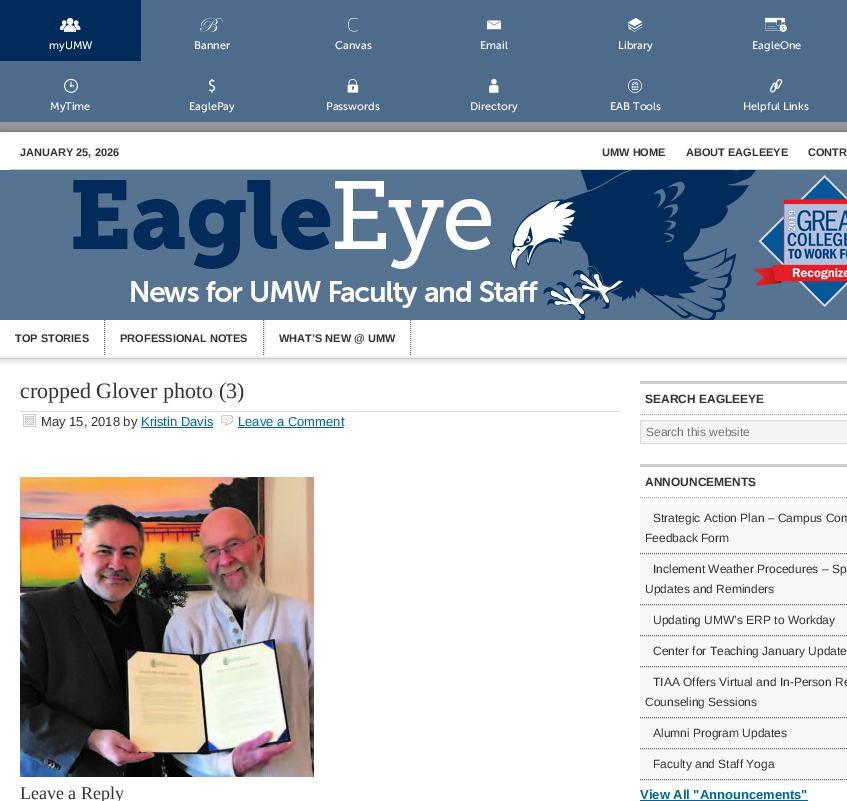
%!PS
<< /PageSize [847 801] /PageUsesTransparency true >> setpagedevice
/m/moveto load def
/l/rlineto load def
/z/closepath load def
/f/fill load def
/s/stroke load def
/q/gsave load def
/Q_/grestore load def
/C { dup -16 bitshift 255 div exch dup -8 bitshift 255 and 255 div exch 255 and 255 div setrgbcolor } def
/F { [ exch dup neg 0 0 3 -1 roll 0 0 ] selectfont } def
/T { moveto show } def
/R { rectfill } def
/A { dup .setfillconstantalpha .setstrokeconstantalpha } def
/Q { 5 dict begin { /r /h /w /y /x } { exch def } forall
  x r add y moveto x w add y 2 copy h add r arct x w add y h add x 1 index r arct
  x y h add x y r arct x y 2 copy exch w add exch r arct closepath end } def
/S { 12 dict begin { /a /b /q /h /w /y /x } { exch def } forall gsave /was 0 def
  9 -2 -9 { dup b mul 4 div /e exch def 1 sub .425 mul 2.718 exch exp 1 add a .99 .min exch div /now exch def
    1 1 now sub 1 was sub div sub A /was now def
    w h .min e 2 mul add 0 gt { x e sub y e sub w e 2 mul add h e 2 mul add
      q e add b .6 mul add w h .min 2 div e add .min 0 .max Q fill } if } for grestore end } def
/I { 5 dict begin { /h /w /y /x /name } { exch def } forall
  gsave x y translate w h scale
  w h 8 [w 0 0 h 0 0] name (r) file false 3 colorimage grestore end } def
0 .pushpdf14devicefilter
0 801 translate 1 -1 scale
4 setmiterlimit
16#999999 C
0 0 847 801 R
16#333333 C
0 135 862 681 0 5 1 S
16#4D6B8B C
0 0 847 122 R
16#002B5A C
0 0 141 61 R
(1.rgb) 60 17 21 15 I
/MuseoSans-Regular 11 F
16#FFFFFF C
(myUMW) 49 49 T
(2.rgb) 200 17 23 15 I
(Banner) 194 49 T
(3.rgb) 348 17 10 15 I
(Canvas) 335 49 T
(4.rgb) 487 20 14 10 I
(Email) 480 49 T
(5.rgb) 628 17 15 15 I
(Library) 618 49 T
(6.rgb) 765 17 22 15 I
(EagleOne) 752 49 T
(7.rgb) 64 78 14 15 I
(MyTime) 50 110 T
(8.rgb) 209 78 7 15 I
(EaglePay) 189 110 T
(9.rgb) 347 79 12 14 I
(Passwords) 326 110 T
(10.rgb) 489 78 10 15 I
(Directory) 470 110 T
(11.rgb) 628 78 14 15 I
(EAB Tools) 610 110 T
(12.rgb) 769 78 14 15 I
(Helpful Links) 743 110 T
0 132 847 669 R
16#CCCCCC C
10 169 837 1 R
/LiberationSans-Bold 11 F
16#333333 C
(JANUARY 25, 2026) 20 156 T
(UMW HOME) 602 156 T
(ABOUT EAGLEEYE) 686 156 T
(CONTR) 808 156 T
(13.rgb) 0 170 847 150 I
16#666666 C
[1 1] 0 setdash
104.5 320 m 0 36 l s
16#333333 C
(TOP STORIES) 15 342 T
16#666666 C
263.5 320 m 0 36 l s
16#333333 C
(PROFESSIONAL NOTES) 120 342 T
16#666666 C
410.5 320 m 0 36 l s
16#333333 C
(WHAT’S NEW @ UMW) 279 342 T
(14.rgb) 0 356 847 9 I
/LiberationSerif-Regular 22 F
(cropped Glover photo \(3\)) 20 398 T
16#DDDDDD C
20 411 600 1 R
(15.rgb) 23 414 13 13 I
/LiberationSans-Regular 13 F
16#333333 C
(May 15, 2018 by) 41 426 T
16#006699 C
(Kristin Davis) 141 426 T
141 427 72 1 R
(16.rgb) 221 415 12 11 I
(Leave a Comment) 238 426 T
238 427 106 1 R
(17.rgb) 20 477 294 300 I
/LiberationSerif-Regular 18 F
16#333333 C
(Leave a Reply) 20 799 T
16#CCCCCC C
640 381 207 3 R
16#AAAAAA C
640 414.5 m 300 0 l s
/LiberationSans-Bold 12 F
16#333333 C
(SEARCH EAGLEEYE) 645 403 T
16#F4F4F4 C
640.5 420.5 m 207 0 l 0 23 l -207 0 l z q f Q_
16#DDDDDD C
[] 0 setdash
s
/LiberationSans-Regular 12 F
16#757575 C
(Search this website) 646 436 T
16#CCCCCC C
640 464 207 3 R
16#AAAAAA C
[1 1] 0 setdash
640 497.5 m 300 0 l s
/LiberationSans-Bold 12 F
16#333333 C
(ANNOUNCEMENTS) 645 486 T
16#F7F7F7 C
640 503 207 277 R
16#666666 C
640 553.5 m 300 0 l s
/LiberationSans-Regular 12 F
16#333333 C
(Strategic Action Plan – Campus Com) 653 522 T
(Feedback Form) 645 542 T
16#666666 C
640 604.5 m 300 0 l s
16#333333 C
(Inclement Weather Procedures – Sp) 653 573 T
(Updates and Reminders) 645 593 T
16#666666 C
640 635.5 m 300 0 l s
16#333333 C
(Updating UMW’s ERP to Workday) 653 624 T
16#666666 C
640 666.5 m 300 0 l s
16#333333 C
(Center for Teaching January Update) 653 655 T
16#666666 C
640 717.5 m 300 0 l s
16#333333 C
(TIAA Offers Virtual and In-Person Re) 653 686 T
(Counseling Sessions) 645 706 T
16#666666 C
640 748.5 m 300 0 l s
16#333333 C
(Alumni Program Updates) 653 737 T
16#666666 C
640 779.5 m 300 0 l s
16#333333 C
(Faculty and Staff Yoga) 653 768 T
/LiberationSans-Bold 13 F
16#006699 C
(View All "Announcements") 640 799 T
640 800 168 1 R
.poppdf14devicefilter showpage
